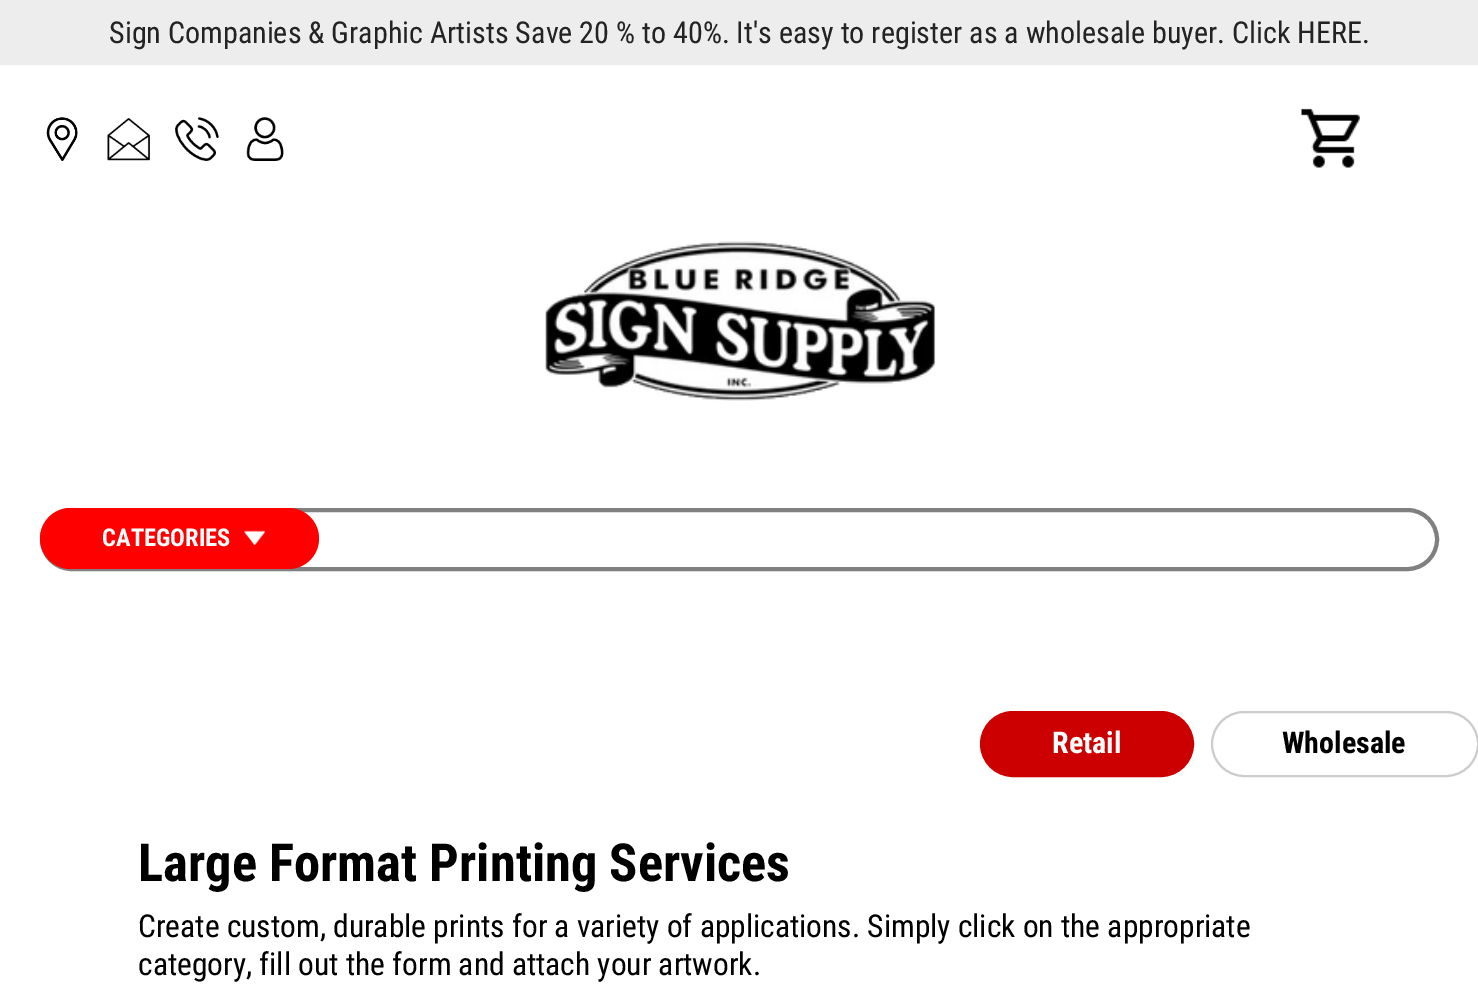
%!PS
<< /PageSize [1478 1007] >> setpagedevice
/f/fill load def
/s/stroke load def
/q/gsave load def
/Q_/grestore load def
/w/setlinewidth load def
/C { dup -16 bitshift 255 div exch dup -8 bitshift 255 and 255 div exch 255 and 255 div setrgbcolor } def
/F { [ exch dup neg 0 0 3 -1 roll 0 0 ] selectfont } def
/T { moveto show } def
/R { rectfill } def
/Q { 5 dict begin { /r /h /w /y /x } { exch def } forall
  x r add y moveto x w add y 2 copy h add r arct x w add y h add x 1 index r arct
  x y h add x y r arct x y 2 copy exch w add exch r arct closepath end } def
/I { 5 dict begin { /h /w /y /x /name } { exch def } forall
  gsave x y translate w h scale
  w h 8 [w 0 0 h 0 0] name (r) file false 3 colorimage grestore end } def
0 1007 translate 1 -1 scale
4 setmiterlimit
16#FFFFFF C
0 0 1478 1007 R
16#EDEDED C
0 0 1478 65 R
/RobotoCondensed-Regular 30.1 F
16#232323 C
(Sign Companies & Graphic Artists Save 20 % to 40%. It's easy to register as a wholesale buyer. Click HERE.) 109 43 T
(1.rgb) 46 117 32 44 I
(2.rgb) 107 118 43 43 I
(3.rgb) 175 117 44 44 I
(4.rgb) 246 117 38 44 I
(5.rgb) 1301 108 59 60 I
(6.rgb) 545 241 391 160 I
16#808080 C
4 w
42 510 1395 59 29.5 Q s
16#FF0000 C
40 508 279 61 30.5 Q f
/RobotoCondensed-Bold 24.5 F
16#FFFFFF C
(CATEGORIES) 102 546 T
(7.rgb) 244 530 22 15 I
16#CC0000 C
981 712 212 64 32 Q q f Q_
2 w
s
/RobotoCondensed-Bold 30 F
16#FFFFFF C
(Retail) 1052 753 T
16#CCCCCC C
1212 712 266 64 32 Q s
16#000000 C
(Wholesale) 1282 753 T
/RobotoCondensed-Bold 52.5 F
(Large Format Printing Services) 138 881 T
/RobotoCondensed-Regular 31.5 F
(Create custom, durable prints for a variety of applications. Simply click on the appropriate) 138 937 T
(category, fill out the form and attach your artwork.) 138 975 T
showpage
